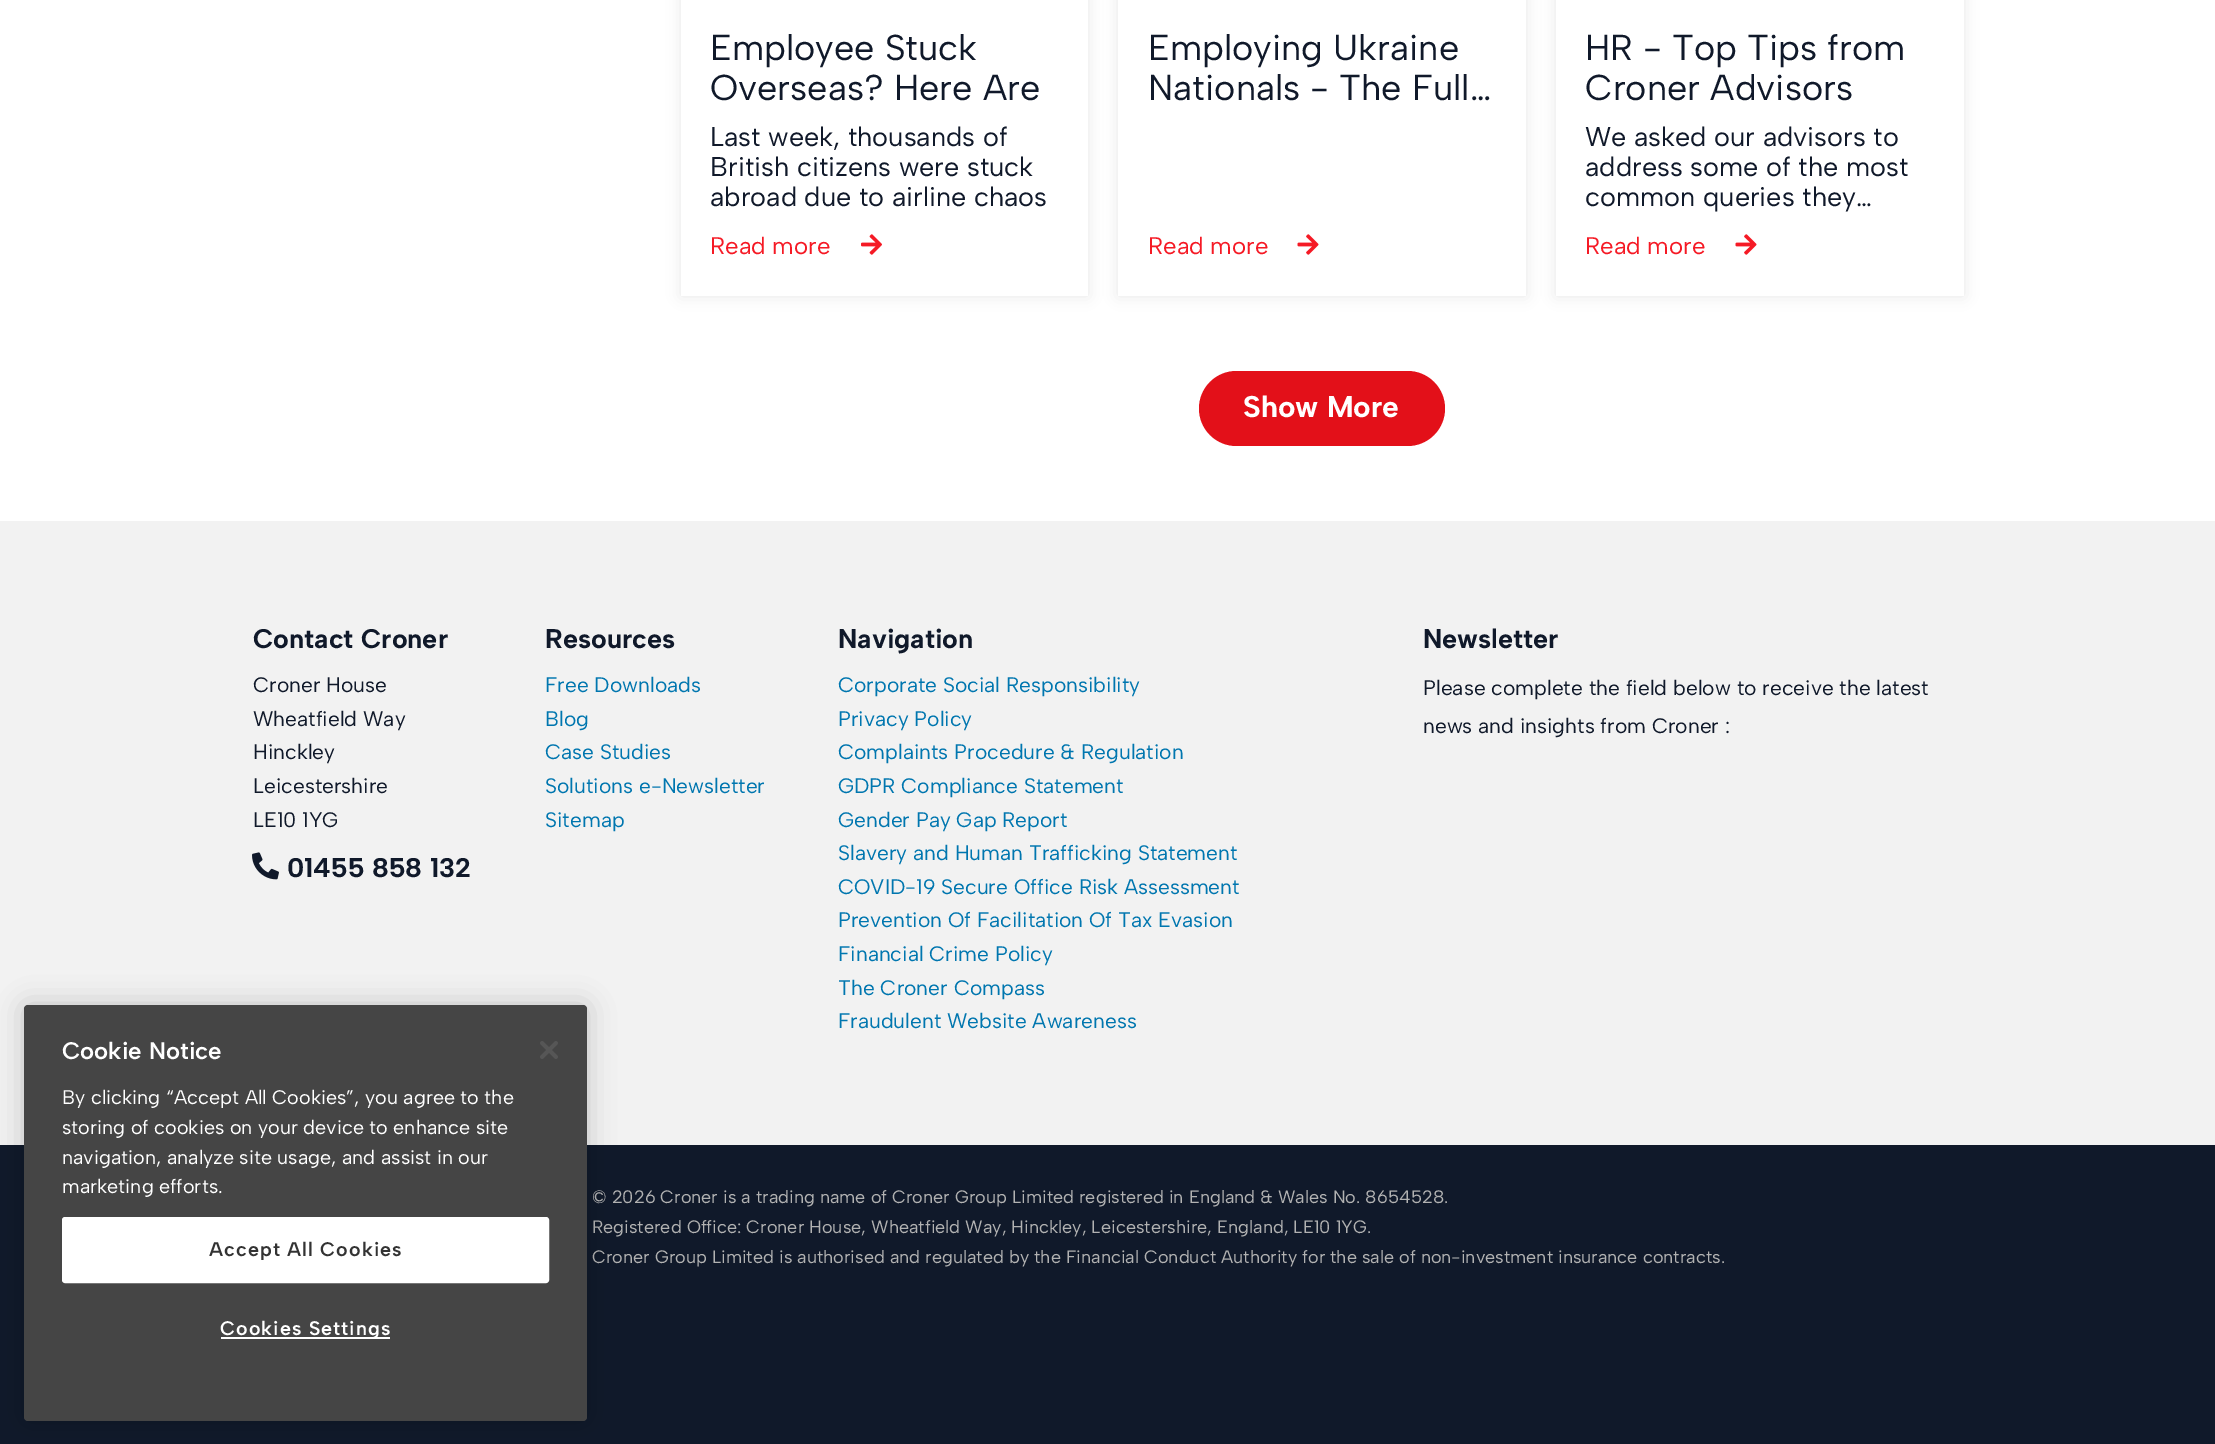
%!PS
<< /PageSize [2215 1444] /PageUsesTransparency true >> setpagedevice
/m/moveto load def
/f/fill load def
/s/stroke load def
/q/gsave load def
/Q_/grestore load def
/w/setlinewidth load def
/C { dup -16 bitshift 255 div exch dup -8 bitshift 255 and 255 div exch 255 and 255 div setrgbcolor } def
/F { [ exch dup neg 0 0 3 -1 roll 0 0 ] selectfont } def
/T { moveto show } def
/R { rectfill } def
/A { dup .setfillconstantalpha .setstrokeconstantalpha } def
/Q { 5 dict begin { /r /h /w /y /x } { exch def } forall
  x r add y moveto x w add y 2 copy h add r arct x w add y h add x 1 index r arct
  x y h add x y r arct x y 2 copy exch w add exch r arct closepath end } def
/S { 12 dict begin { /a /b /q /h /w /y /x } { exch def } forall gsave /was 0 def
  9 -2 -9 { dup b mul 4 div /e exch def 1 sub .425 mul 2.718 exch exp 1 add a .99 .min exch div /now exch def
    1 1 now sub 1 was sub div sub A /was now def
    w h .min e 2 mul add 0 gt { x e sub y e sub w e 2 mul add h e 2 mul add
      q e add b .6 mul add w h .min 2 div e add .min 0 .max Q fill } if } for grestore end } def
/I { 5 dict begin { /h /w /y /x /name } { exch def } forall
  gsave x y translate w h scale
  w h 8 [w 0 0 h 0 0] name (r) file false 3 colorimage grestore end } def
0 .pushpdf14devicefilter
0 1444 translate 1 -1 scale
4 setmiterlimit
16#FFFFFF C
0 0 2215 1444 R
16#000000 C
681 -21 407 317 0 7 .09 S
16#FFFFFF C
681 0 407 296 R
/AlbertSans-Regular 36 F
16#10192A C
(Employee Stuck) 710 60 T
(Overseas? Here Are) 710 100 T
/AlbertSans-Regular 27 F
(Last week, thousands of) 710 146 T
(British citizens were stuck) 710 176 T
(abroad due to airline chaos) 710 206 T
/AlbertSans-Regular 24 F
16#F51A25 C
(Read more) 710 254 T
(1.rgb) 861 234 21 21 I
16#000000 C
1118 -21 408 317 0 7 .09 S
16#FFFFFF C
1118 0 408 296 R
/AlbertSans-Regular 36 F
16#10192A C
(Employing Ukraine) 1148 60 T
(Nationals - The Full…) 1148 100 T
/AlbertSans-Regular 24 F
16#F51A25 C
(Read more) 1148 254 T
(2.rgb) 1297 234 22 21 I
16#000000 C
1556 -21 408 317 0 7 .09 S
16#FFFFFF C
1556 0 408 296 R
/AlbertSans-Regular 36 F
16#10192A C
(HR - Top Tips from) 1585 60 T
(Croner Advisors) 1585 100 T
/AlbertSans-Regular 27 F
(We asked our advisors to) 1585 146 T
(address some of the most) 1585 176 T
(common queries they…) 1585 206 T
/AlbertSans-Regular 24 F
16#F51A25 C
(Read more) 1585 254 T
(2.rgb) 1735 234 22 21 I
16#E31019 C
1199 371 246 75 37.5 Q f
/AlbertSans-Bold 30 F
16#FFFFFF C
(Show More) 1243 417 T
16#F2F2F2 C
0 521 2215 624 R
/AlbertSans-Bold 27 F
16#10192A C
(Contact Croner) 253 648 T
/AlbertSans-Regular 21 F
(Croner House) 253 692 T
(Wheatfield Way) 253 726 T
(Hinckley) 253 759 T
(Leicestershire) 253 793 T
(LE10 1YG) 253 827 T
(3.rgb) 252 852 27 28 I
/AlbertSans-Bold 27 F
(01455 858 132) 287 877 T
(Resources) 545 648 T
/AlbertSans-Regular 21 F
16#0076AF C
(Free Downloads) 545 692 T
(Blog) 545 726 T
(Case Studies) 545 759 T
(Solutions e-Newsletter) 545 793 T
(Sitemap) 545 827 T
/AlbertSans-Bold 27 F
16#10192A C
(Navigation) 838 648 T
/AlbertSans-Regular 21 F
16#0076AF C
(Corporate Social Responsibility) 838 692 T
(Privacy Policy) 838 726 T
(Complaints Procedure & Regulation) 838 759 T
(GDPR Compliance Statement) 838 793 T
(Gender Pay Gap Report) 838 827 T
(Slavery and Human Trafficking Statement) 838 860 T
(COVID-19 Secure Office Risk Assessment) 838 894 T
(Prevention Of Facilitation Of Tax Evasion) 838 927 T
(Financial Crime Policy) 838 961 T
(The Croner Compass) 838 995 T
(Fraudulent Website Awareness) 838 1028 T
/AlbertSans-Bold 27 F
16#10192A C
(Newsletter) 1423 648 T
/AlbertSans-Regular 21 F
(Please complete the field below to receive the latest) 1423 695 T
(news and insights from Croner :) 1423 733 T
0 1145 2215 299 R
/AlbertSans-Regular 18 F
16#B2B2B2 C
(© 2026 Croner is a trading name of Croner Group Limited registered in England & Wales No. 8654528.) 592 1203 T
(Registered Office: Croner House, Wheatfield Way, Hinckley, Leicestershire, England, LE10 1YG.) 592 1233 T
(Croner Group Limited is authorised and regulated by the Financial Conduct Authority for the sale of non-investment insurance contracts.) 592 1263 T
16#000000 C
24 1005 563 416 4 13.5 .2 S
16#454545 C
24 1005 563 416 4 Q f
/AlbertSans-SemiBold 24 F
16#FFFFFF C
(Cookie Notice) 62 1059 T
/AlbertSans-Regular 19.7 F
(By clicking “Accept All Cookies”, you agree to the) 62 1104 T
(storing of cookies on your device to enhance site) 62 1134 T
(navigation, analyze site usage, and assist in our) 62 1164 T
(marketing efforts.) 62 1193 T
(4.rgb) 540 1041 18 18 I
63 1218 485 64 2 Q q f Q_
2 w
s
/AlbertSans-SemiBold 19.7 F
16#333333 C
209 1256 m 1 0 (Accept All Cookies) ashow
16#FFFFFF C
221 1337 169 2 R
220 1335 m 1 0 (Cookies Settings) ashow
.poppdf14devicefilter showpage
